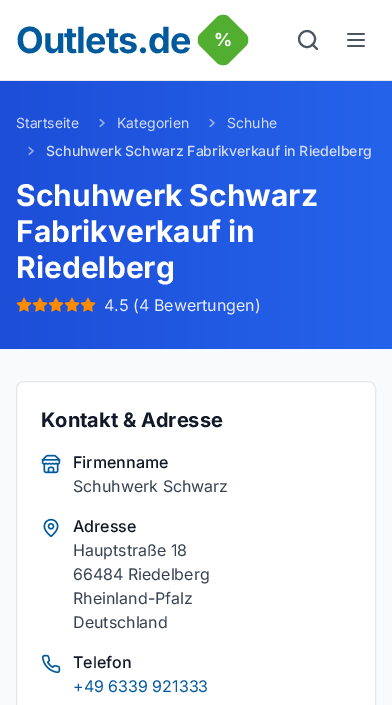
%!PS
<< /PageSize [392 705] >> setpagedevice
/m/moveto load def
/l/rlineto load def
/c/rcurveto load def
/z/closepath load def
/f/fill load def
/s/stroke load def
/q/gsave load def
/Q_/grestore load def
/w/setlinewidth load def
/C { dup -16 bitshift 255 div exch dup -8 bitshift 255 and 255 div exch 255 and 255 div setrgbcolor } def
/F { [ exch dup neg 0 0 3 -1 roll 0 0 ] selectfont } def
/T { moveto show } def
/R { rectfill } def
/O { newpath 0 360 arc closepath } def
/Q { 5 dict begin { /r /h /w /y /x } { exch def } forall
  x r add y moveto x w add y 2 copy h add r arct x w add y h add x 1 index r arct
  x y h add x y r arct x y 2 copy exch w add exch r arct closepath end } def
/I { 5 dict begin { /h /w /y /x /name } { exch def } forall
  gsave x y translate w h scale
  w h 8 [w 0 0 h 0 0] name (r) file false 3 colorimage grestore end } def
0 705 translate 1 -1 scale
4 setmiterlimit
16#F9FAFB C
0 0 392 705 R
16#FFFFFF C
0 0 392 80 R
16#E5E7EB C
0 80 392 1 R
/Inter-Bold 36 F
16#005A9C C
16 53 m -1 0 (Outlets.de) ashow
16#52AE30 C
229 17 m 17 17 l 3 3 3 9 0 12 c -17 17 l -3 3 -8 3 -12 0 c -17 -17 l -3 -3 -3 -9 0 -12 c 17 -17 l 4 -3 9 -3 12 0 c z f
/Inter-Bold 18 F
16#FFFFFF C
(%) 214 46 T
16#4B5563 C
2 w
307 39 8 O s
1 setlinecap
1 setlinejoin
317 49 m -4.5 -4.5 l s
(1.rgb) 347 33 18 14 I
q 0 81 m 392 0 l 0 268 l -392 0 l z clip newpath
<< /ShadingType 2 /ColorSpace /DeviceRGB /Coords [0 215 392 215] /Extend [true true] /Function << /FunctionType 2 /Domain [0 1] /C0 [.114 .306 .847] /C1 [.145 .388 .922] /N 1 >> >> shfill Q_
/Inter-Regular 14 F
16#D2DCF8 C
(Startseite) 16 128 T
16#9DB3F0 C
1.2 w
100 126.5 m 4 -3.5 l -4 -3.5 l s
16#D2DCF8 C
(Kategorien) 117 128 T
16#9DB6F2 C
210 126.5 m 4 -3.5 l -4 -3.5 l s
16#D2DCF8 C
(Schuhe) 227 128 T
16#9CB2EF C
29 154.5 m 4 -3.5 l -4 -3.5 l s
/Inter-Medium 14 F
16#D2DCF8 C
(Schuhwerk Schwarz Fabrikverkauf in Riedelberg) 46 156 T
/Inter-Bold 30 F
16#FFFFFF C
(Schuhwerk Schwarz) 16 206 T
(Fabrikverkauf in) 16 242 T
(Riedelberg) 16 278 T
(2.rgb) 16 297 16 15 I
(3.rgb) 32 297 16 15 I
(4.rgb) 48 297 16 15 I
(5.rgb) 64 297 16 15 I
(6.rgb) 80 297 16 15 I
/Inter-Regular 16 F
16#E9EEFC C
(4.5 \(4 Bewertungen\)) 104 311 T
16#FFFFFF C
16.5 381.5 359 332 7.5 Q q f Q_
16#E5E7EB C
1 w
0 setlinecap
0 setlinejoin
s
/Inter-Bold 20 F
16#111827 C
(Kontakt & Adresse) 41 427 T
(7.rgb) 41 454 20 20 I
/Inter-Medium 16 F
(Firmenname) 73 468 T
/Inter-Regular 16 F
16#374151 C
(Schuhwerk Schwarz) 73 492 T
(8.rgb) 43 518 16 20 I
/Inter-Medium 16 F
16#111827 C
(Adresse) 73 532 T
/Inter-Regular 16 F
16#374151 C
(Hauptstraße 18) 73 556 T
(66484 Riedelberg) 73 580 T
(Rheinland-Pfalz) 73 604 T
(Deutschland) 73 628 T
(9.rgb) 41 654 20 20 I
/Inter-Medium 16 F
16#111827 C
(Telefon) 73 668 T
/Inter-Regular 16 F
16#005A9C C
(+49 6339 921333) 73 692 T
showpage
